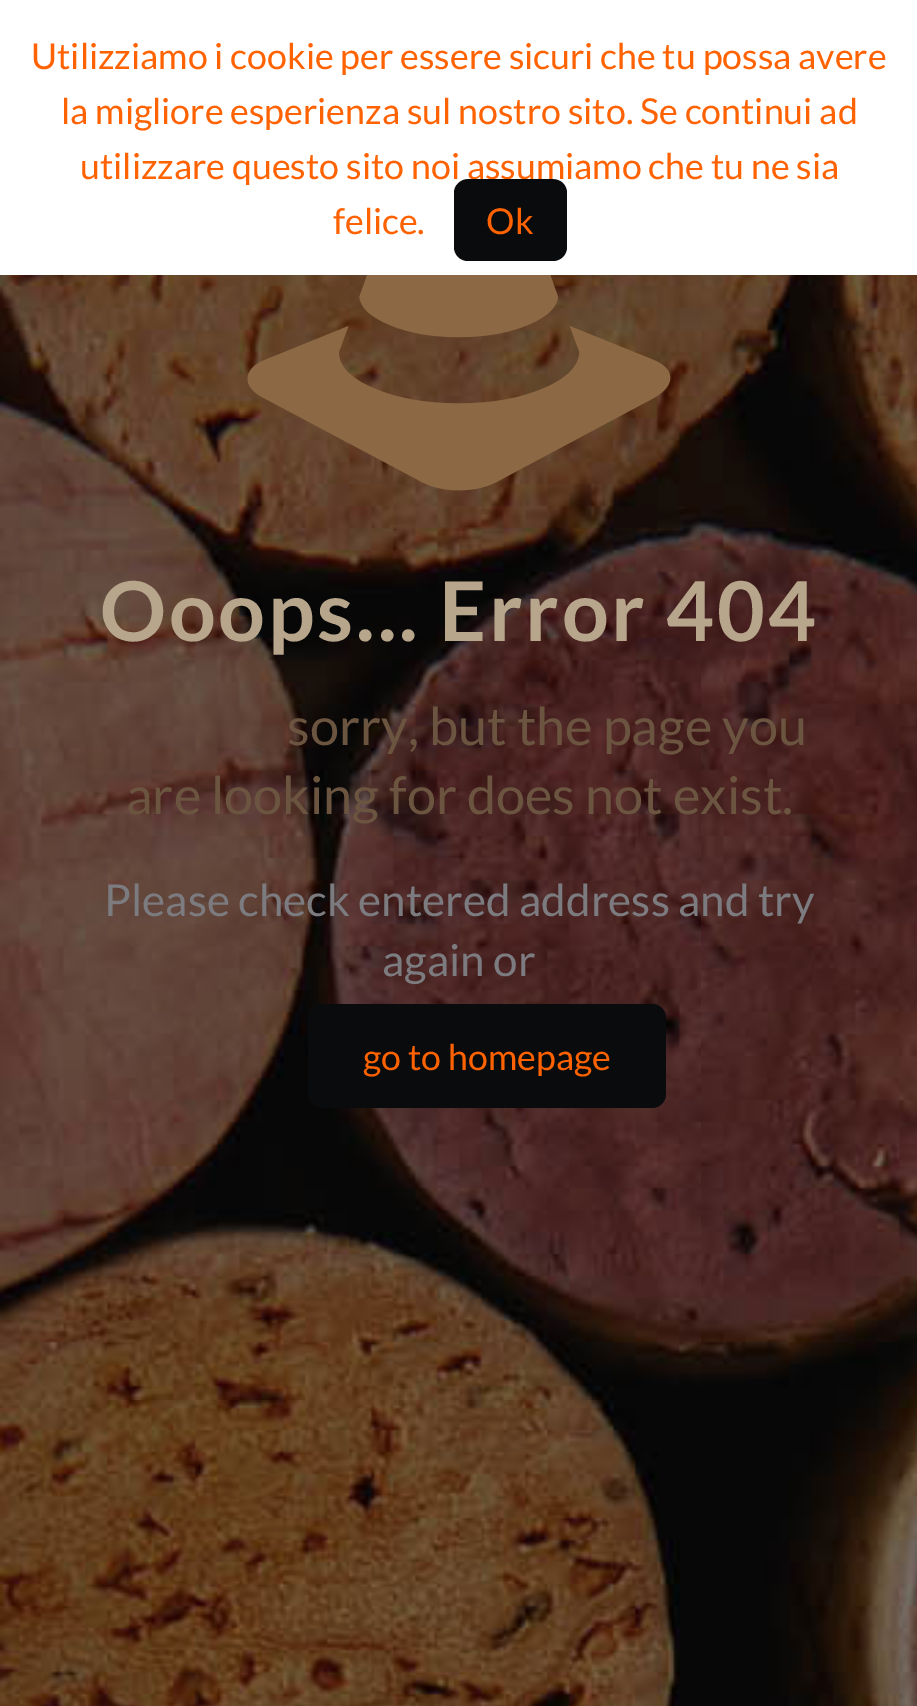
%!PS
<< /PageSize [917 1706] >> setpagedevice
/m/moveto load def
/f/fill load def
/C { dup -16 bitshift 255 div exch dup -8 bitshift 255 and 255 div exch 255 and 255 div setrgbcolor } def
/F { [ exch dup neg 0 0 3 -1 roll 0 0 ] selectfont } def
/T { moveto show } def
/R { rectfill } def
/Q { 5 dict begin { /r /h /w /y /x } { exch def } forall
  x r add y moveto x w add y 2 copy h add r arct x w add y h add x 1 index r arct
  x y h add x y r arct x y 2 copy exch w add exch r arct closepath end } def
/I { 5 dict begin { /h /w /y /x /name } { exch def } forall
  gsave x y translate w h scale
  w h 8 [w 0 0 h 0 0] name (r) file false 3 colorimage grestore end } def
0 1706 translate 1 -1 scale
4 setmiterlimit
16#FFFFFF C
0 0 917 1706 R
(1.rgb) 0 275 917 1431 I
/Lato-Regular 35.75 F
16#FF6201 C
(Utilizziamo i cookie per essere sicuri che tu possa avere) 31 69 T
(la migliore esperienza sul nostro sito. Se continui ad) 61 124 T
(utilizzare questo sito noi assumiamo che tu ne sia) 80 179 T
16#0A0B0D C
454 179 113 82 14 Q f
(2.rgb) 456 179 104 6 I
16#FF6201 C
(felice.) 333 234 T
(Ok) 486 234 T
(3.rgb) 247 275 424 216 I
/Lato-Bold 82.5 F
16#B8A68C C
100 641 m 2.75 0 (Ooops... Error 404) ashow
/Lato-Regular 52.25 F
16#6B5540 C
(sorry, but the page you) 287 745 T
(are looking for does not exist.) 126 814 T
/Lato-Regular 44 F
16#7C7C80 C
(Please check entered address and try) 104 916 T
(again or) 382 976 T
16#0A0B0D C
308 1004 358 104 14 Q f
/Lato-Regular 35.75 F
16#FF6201 C
(go to homepage) 363 1070 T
showpage
